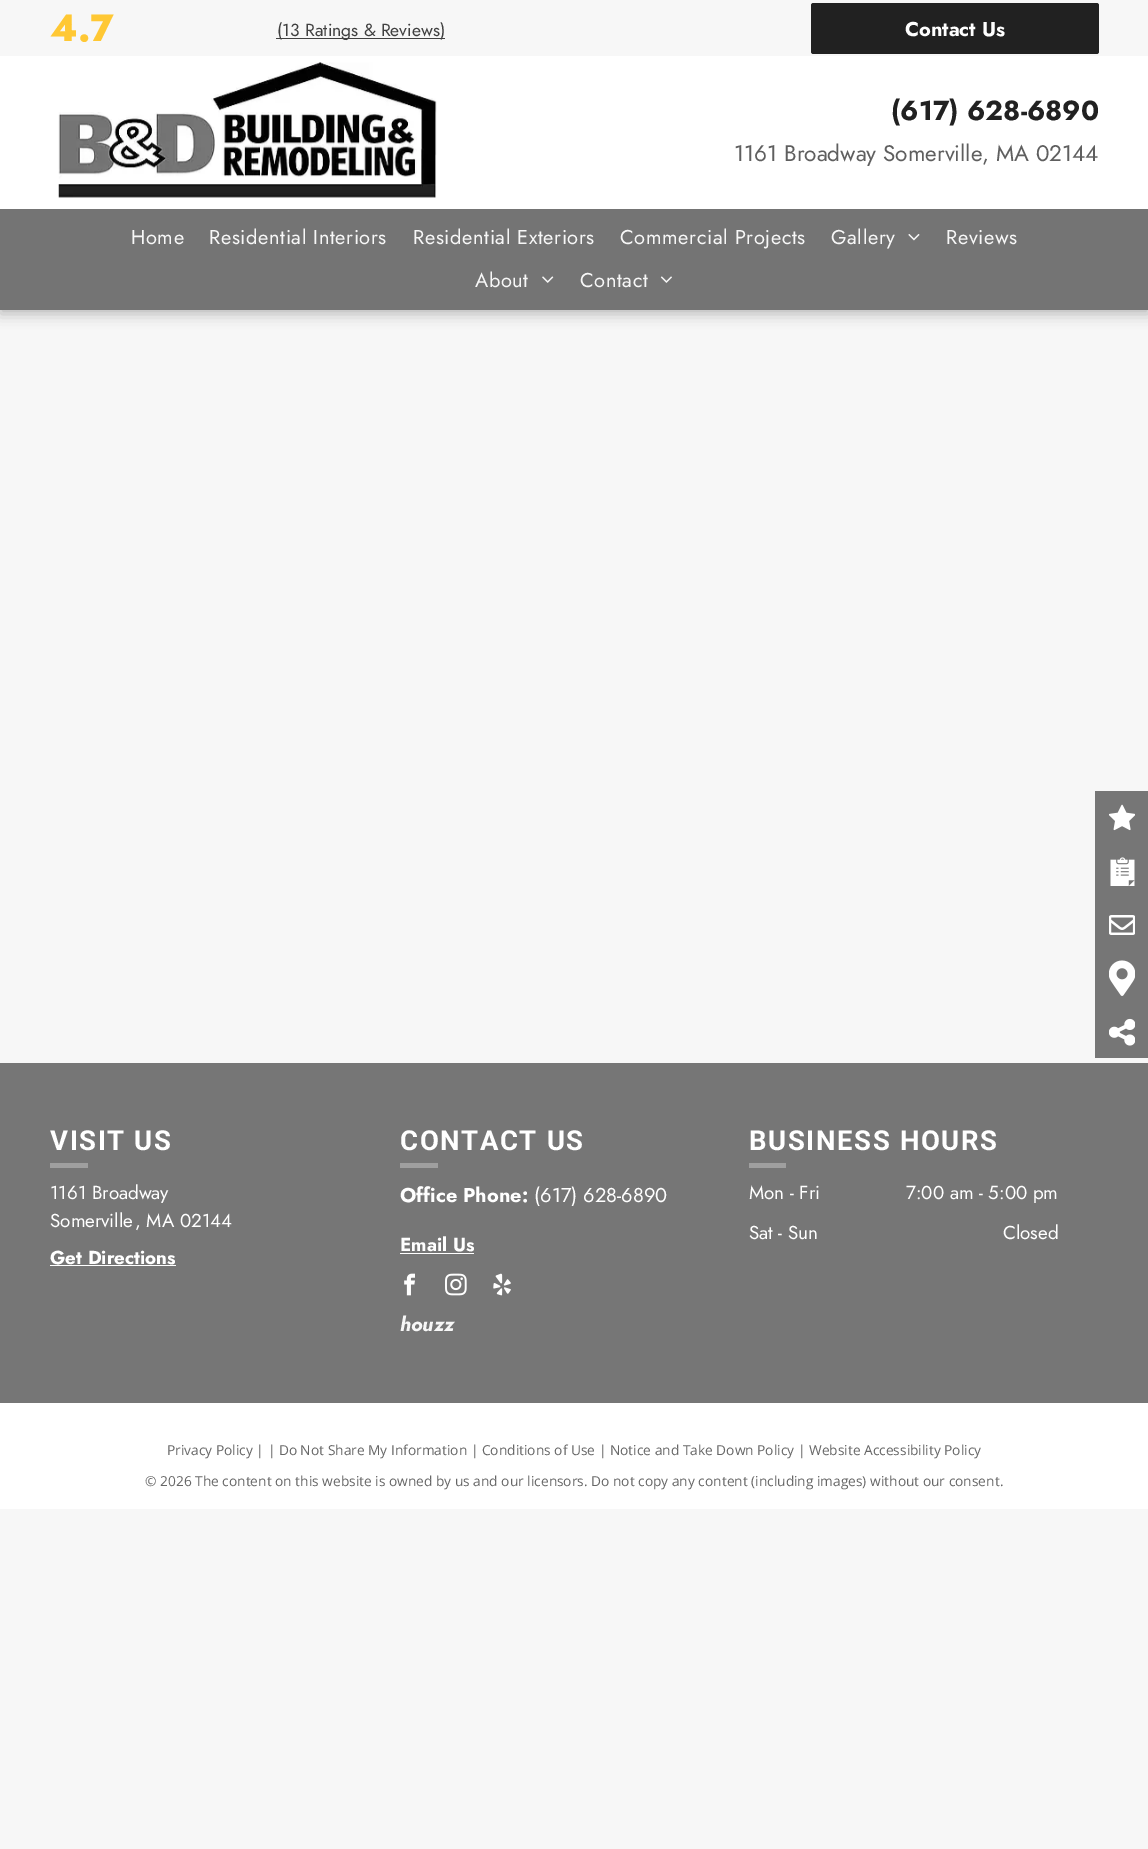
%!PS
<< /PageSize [1148 1849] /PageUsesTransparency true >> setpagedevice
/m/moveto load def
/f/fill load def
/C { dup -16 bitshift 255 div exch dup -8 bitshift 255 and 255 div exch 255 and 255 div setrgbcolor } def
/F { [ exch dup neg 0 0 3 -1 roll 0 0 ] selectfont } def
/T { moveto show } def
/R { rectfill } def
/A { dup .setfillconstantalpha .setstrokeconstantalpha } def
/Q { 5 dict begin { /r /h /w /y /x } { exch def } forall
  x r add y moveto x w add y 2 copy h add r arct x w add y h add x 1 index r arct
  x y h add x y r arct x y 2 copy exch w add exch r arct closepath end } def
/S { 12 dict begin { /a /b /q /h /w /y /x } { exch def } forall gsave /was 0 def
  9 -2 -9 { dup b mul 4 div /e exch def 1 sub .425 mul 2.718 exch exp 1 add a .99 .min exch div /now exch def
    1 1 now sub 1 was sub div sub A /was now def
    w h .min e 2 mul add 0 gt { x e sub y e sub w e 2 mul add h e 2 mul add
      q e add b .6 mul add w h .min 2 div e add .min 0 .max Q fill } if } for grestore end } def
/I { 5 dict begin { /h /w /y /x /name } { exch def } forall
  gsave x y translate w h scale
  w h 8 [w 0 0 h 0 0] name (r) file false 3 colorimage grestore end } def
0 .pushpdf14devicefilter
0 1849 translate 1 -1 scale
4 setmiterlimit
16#F7F7F7 C
0 0 1148 1849 R
16#000000 C
0 4 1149 310 0 7 .25 S
16#FFFFFF C
0 56 1148 153 R
16#F7F7F7 C
0 0 1148 56 R
/Jost-ExtraBold 38 F
16#FFC834 C
(4.7) 50 41 T
16#404040 C
276 38 169 1 R
/Jost-Regular 17.5 F
(\(13 Ratings & Reviews\)) 277 36 T
16#212121 C
811 3 288 51 2.5 Q f
/Jost-Bold 20 F
16#FFFFFF C
(Contact Us) 905 36 T
(1.rgb) 58 62 379 136 I
/Jost-Bold 27.5 F
16#212121 C
(\(617\) 628-6890) 891 120 T
/Jost-Regular 22.5 F
16#5F5F5F C
(1161 Broadway Somerville, MA 02144) 734 161 T
16#747474 C
0 209 1148 101 R
/Jost-Regular 20 F
16#F7F7F7 C
131 244 m .6 0 (Home) ashow
209 244 m .6 0 (Residential Interiors) ashow
413 244 m .6 0 (Residential Exteriors) ashow
620 244 m .6 0 (Commercial Projects) ashow
831 244 m .6 0 (Gallery) ashow
(2.rgb) 908 234 12 7 I
946 244 m .6 0 (Reviews) ashow
475 287 m .6 0 (About) ashow
(3.rgb) 542 276 12 7 I
580 287 m .6 0 (Contact) ashow
(4.rgb) 660 276 12 7 I
16#767676 C
1095 791 53 267 R
(5.rgb) 1109 804 26 27 I
(6.rgb) 1110 857 25 29 I
(7.rgb) 1109 915 26 20 I
(8.rgb) 1109 960 26 36 I
(9.rgb) 1109 1018 26 28 I
0 1063 1148 340 R
/Roboto-Bold 27.5 F
16#FFFFFF C
50 1150 m 1.6 0 (VISIT US) ashow
16#9F9F9F C
50 1163 38 5 R
/Jost-Regular 18.75 F
16#FFFFFF C
(1161 Broadway) 50 1199 T
(Somerville) 50 1227 T
(, MA 02144) 135 1227 T
/Jost-Bold 18.75 F
(Get Directions) 50 1264 T
50 1265 126 1 R
/Roboto-Bold 27.5 F
400 1150 m 1.6 0 (CONTACT US) ashow
16#9F9F9F C
400 1163 38 5 R
/Jost-Bold 20 F
16#FFFFFF C
(Office Phone:) 400 1202 T
/Jost-Regular 20 F
(\(617\) 628-6890) 534 1202 T
/Jost-Bold 18.75 F
(Email Us) 400 1251 T
400 1253 74 1 R
(10.rgb) 404 1273 11 23 I
(11.rgb) 445 1273 22 23 I
(12.rgb) 493 1273 18 23 I
/Jost-BoldItalic 20 F
16#F7F7F7 C
(houzz) 400 1331 T
/Roboto-Bold 27.5 F
16#FFFFFF C
749 1150 m 1.6 0 (BUSINESS HOURS) ashow
16#9F9F9F C
749 1163 37 5 R
/Jost-Regular 18.75 F
16#FFFFFF C
(Mon - Fri) 749 1199 T
(7:00 am - 5:00 pm) 906 1199 T
(Sat - Sun) 749 1239 T
(Closed) 1003 1239 T
0 1403 1148 106 R
/OpenSans-Regular 13.75 F
16#666666 C
(Privacy Policy | | Do Not Share My Information | Conditions of Use | Notice and Take Down Policy | Website Accessibility Policy) 167 1455 T
(© 2026 The content on this website is owned by us and our licensors. Do not copy any content \(including images\) without our consent.) 145 1486 T
.poppdf14devicefilter showpage
